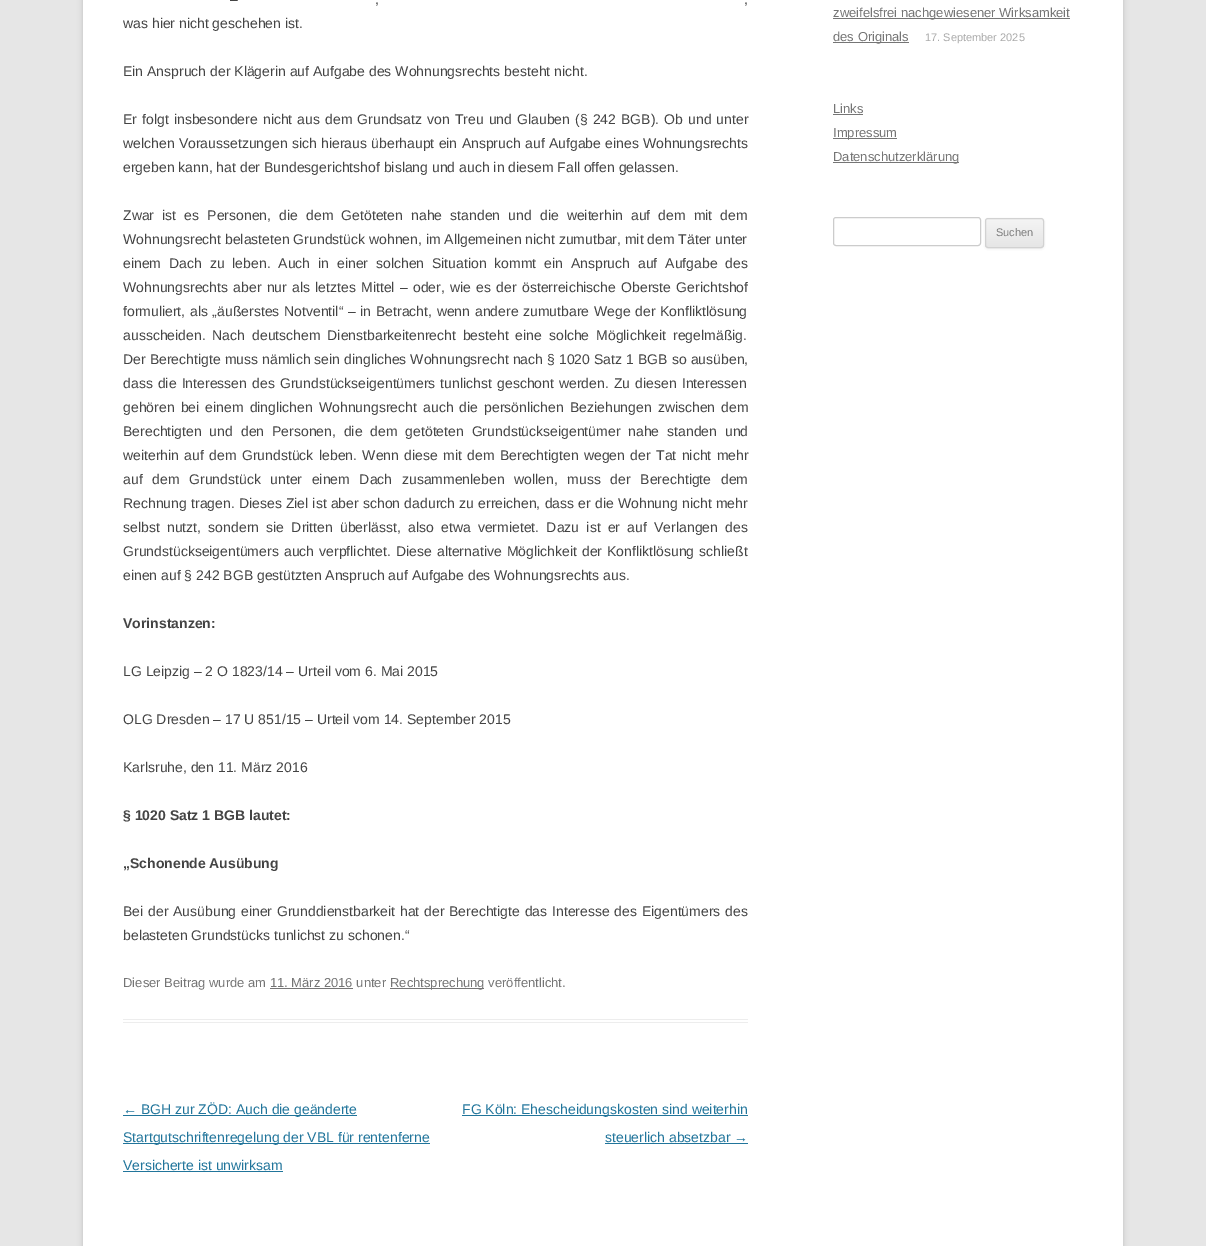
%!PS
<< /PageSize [1206 1246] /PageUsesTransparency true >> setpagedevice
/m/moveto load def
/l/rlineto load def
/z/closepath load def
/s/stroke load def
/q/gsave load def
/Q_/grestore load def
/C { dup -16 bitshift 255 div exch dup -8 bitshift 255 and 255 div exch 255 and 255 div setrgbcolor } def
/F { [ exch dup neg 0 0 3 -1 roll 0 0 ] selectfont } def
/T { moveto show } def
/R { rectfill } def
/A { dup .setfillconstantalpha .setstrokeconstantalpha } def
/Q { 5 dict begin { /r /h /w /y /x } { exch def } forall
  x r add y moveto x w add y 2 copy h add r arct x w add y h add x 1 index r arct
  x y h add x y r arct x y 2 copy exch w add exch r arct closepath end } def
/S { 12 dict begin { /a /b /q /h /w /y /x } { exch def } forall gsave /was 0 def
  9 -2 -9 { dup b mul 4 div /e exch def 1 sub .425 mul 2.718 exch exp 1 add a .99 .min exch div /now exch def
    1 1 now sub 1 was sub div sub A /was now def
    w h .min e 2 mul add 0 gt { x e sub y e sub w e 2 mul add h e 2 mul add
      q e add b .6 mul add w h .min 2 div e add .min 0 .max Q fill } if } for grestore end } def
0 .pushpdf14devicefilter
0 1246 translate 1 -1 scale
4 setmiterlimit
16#E6E6E6 C
0 0 1206 1246 R
16#646464 C
83 -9 1040 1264 0 3 .3 S
16#FFFFFF C
83 0 1040 1246 R
16#EDEDED C
123 1019 625 1 R
123 1022 625 1 R
/LiberationSans-Regular 14 F
16#444444 C
230 4 m 1 0 32 (–) widthshow
375 4 m 1 0 32 (,) widthshow
744 4 m 1 0 32 (,) widthshow
(was hier nicht geschehen ist.) 123 28 T
(Ein Anspruch der Klägerin auf Aufgabe des Wohnungsrechts besteht nicht.) 123 76 T
123 124 m 1.2 0 32 (Er folgt insbesondere nicht aus dem Grundsatz von Treu und Glauben \(§ 242 BGB\). Ob und unter) widthshow
123 148 m .4 0 32 (welchen Voraussetzungen sich hieraus überhaupt ein Anspruch auf Aufgabe eines Wohnungsrechts) widthshow
(ergeben kann, hat der Bundesgerichtshof bislang und auch in diesem Fall offen gelassen.) 123 172 T
123 220 m 4.25 0 32 (Zwar ist es Personen, die dem Getöteten nahe standen und die weiterhin auf dem mit dem) widthshow
(Wohnungsrecht belasteten Grundstück wohnen, im Allgemeinen nicht zumutbar, mit dem Täter unter) 123 244 T
123 268 m 4 0 32 (einem Dach zu leben. Auch in einer solchen Situation kommt ein Anspruch auf Aufgabe des) widthshow
123 292 m 1.4 0 32 (Wohnungsrechts aber nur als letztes Mittel – oder, wie es der österreichische Oberste Gerichtshof) widthshow
123 316 m .8 0 32 (formuliert, als „äußerstes Notventil“ – in Betracht, wenn andere zumutbare Wege der Konfliktlösung) widthshow
123 340 m 3 0 32 (ausscheiden. Nach deutschem Dienstbarkeitenrecht besteht eine solche Möglichkeit regelmäßig.) widthshow
123 364 m .2 0 32 (Der Berechtigte muss nämlich sein dingliches Wohnungsrecht nach § 1020 Satz 1 BGB so ausüben,) widthshow
123 388 m 1.25 0 32 (dass die Interessen des Grundstückseigentümers tunlichst geschont werden. Zu diesen Interessen) widthshow
123 412 m 2.25 0 32 (gehören bei einem dinglichen Wohnungsrecht auch die persönlichen Beziehungen zwischen dem) widthshow
123 436 m 4 0 32 (Berechtigten und den Personen, die dem getöteten Grundstückseigentümer nahe standen und) widthshow
123 460 m 1.5 0 32 (weiterhin auf dem Grundstück leben. Wenn diese mit dem Berechtigten wegen der Tat nicht mehr) widthshow
123 484 m 5.75 0 32 (auf dem Grundstück unter einem Dach zusammenleben wollen, muss der Berechtigte dem) widthshow
123 508 m .3 0 32 (Rechnung tragen. Dieses Ziel ist aber schon dadurch zu erreichen, dass er die Wohnung nicht mehr) widthshow
123 532 m 3.4 0 32 (selbst nutzt, sondern sie Dritten überlässt, also etwa vermietet. Dazu ist er auf Verlangen des) widthshow
123 556 m 1.25 0 32 (Grundstückseigentümers auch verpflichtet. Diese alternative Möglichkeit der Konfliktlösung schließt) widthshow
(einen auf § 242 BGB gestützten Anspruch auf Aufgabe des Wohnungsrechts aus.) 123 580 T
/LiberationSans-Bold 14 F
(Vorinstanzen:) 123 628 T
/LiberationSans-Regular 14 F
(LG Leipzig – 2 O 1823/14 – Urteil vom 6. Mai 2015) 123 676 T
(OLG Dresden – 17 U 851/15 – Urteil vom 14. September 2015) 123 724 T
(Karlsruhe, den 11. März 2016) 123 772 T
/LiberationSans-Bold 14 F
(§ 1020 Satz 1 BGB lautet:) 123 820 T
(„Schonende Ausübung) 123 868 T
/LiberationSans-Regular 14 F
123 916 m .9 0 32 (Bei der Ausübung einer Grunddienstbarkeit hat der Berechtigte das Interesse des Eigentümers des) widthshow
(belasteten Grundstücks tunlichst zu schonen.“) 123 940 T
/LiberationSans-Regular 13 F
16#757575 C
(Dieser Beitrag wurde am 11. März 2016 unter) 123 987 T
390 988 94 1 R
(Rechtsprechung veröffentlicht.) 390 987 T
270 988 83 1 R
16#21759B C
123 1115 234 1 R
/LiberationSans-Regular 14 F
(← BGH zur ZÖD: Auch die geänderte) 123 1114 T
123 1143 307 1 R
(Startgutschriftenregelung der VBL für rentenferne) 123 1142 T
(Versicherte ist unwirksam) 123 1170 T
123 1171 160 1 R
462 1115 286 1 R
(FG Köln: Ehescheidungskosten sind weiterhin) 462 1114 T
(steuerlich absetzbar →) 605 1142 T
605 1143 143 1 R
16#757575 C
833 18 237 1 R
/LiberationSans-Regular 13 F
(zweifelsfrei nachgewiesener Wirksamkeit) 833 17 T
833 42 76 1 R
(des Originals) 833 41 T
/LiberationSans-Regular 11 F
16#AAAAAA C
(17. September 2025) 925 41 T
/LiberationSans-Regular 13 F
16#757575 C
(Links) 833 113 T
833 114 30 1 R
833 138 64 1 R
(Impressum) 833 137 T
833 162 126 1 R
(Datenschutzerklärung) 833 161 T
16#CCCCCC C
833.5 217.5 147 28 2.5 Q s
16#404040 C
985 219 59 30 3 1 .1 S
q
985 218 59 30 3 Q clip newpath
q 985 219 m 59 0 l 0 28 l -59 0 l z clip newpath
<< /ShadingType 2 /ColorSpace /DeviceRGB /Coords [1015 219 1015 247] /Extend [true true] /Function << /FunctionType 2 /Domain [0 1] /C0 [.957 .957 .957] /C1 [.902 .902 .902] /N 1 >> >> shfill Q_
Q_
16#D2D2D2 C
985.5 218.5 58 29 2.5 Q s
/LiberationSans-Regular 11 F
16#7C7C7C C
(Suchen) 996 236 T
.poppdf14devicefilter showpage
